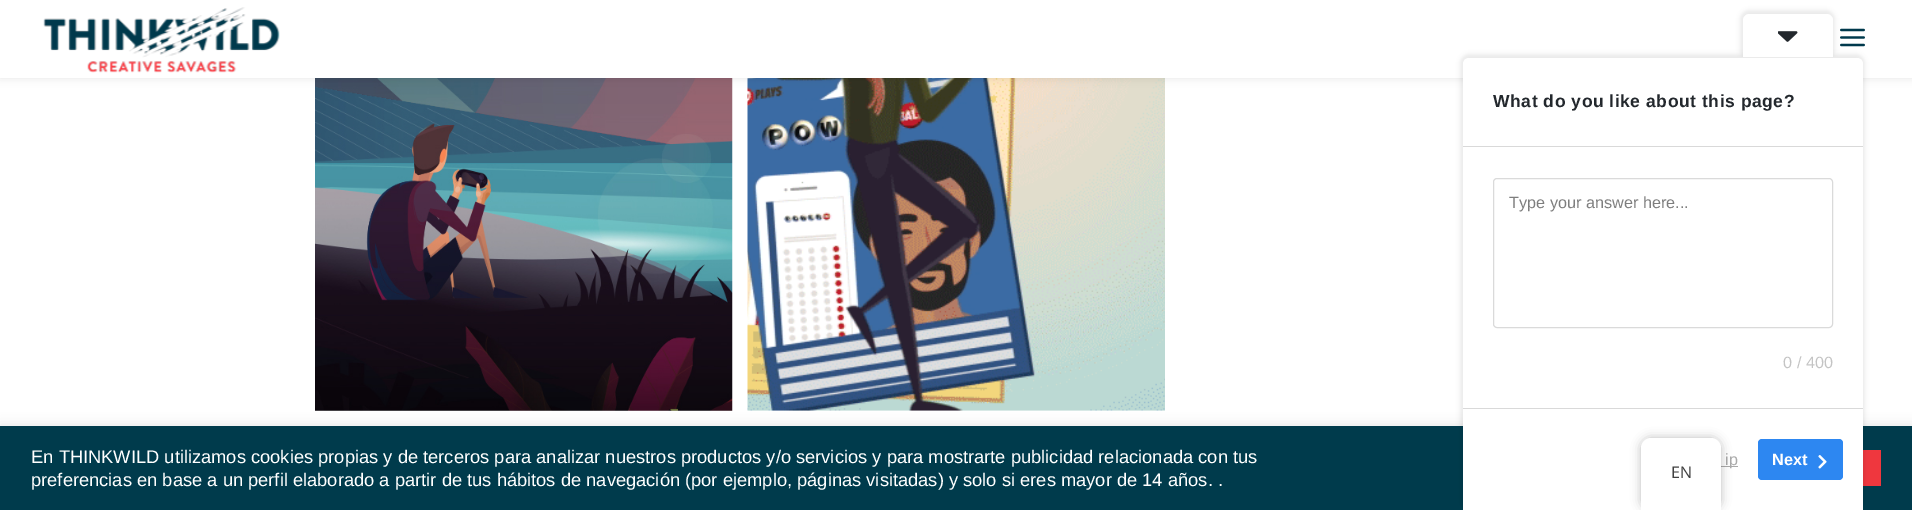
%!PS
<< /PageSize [1912 510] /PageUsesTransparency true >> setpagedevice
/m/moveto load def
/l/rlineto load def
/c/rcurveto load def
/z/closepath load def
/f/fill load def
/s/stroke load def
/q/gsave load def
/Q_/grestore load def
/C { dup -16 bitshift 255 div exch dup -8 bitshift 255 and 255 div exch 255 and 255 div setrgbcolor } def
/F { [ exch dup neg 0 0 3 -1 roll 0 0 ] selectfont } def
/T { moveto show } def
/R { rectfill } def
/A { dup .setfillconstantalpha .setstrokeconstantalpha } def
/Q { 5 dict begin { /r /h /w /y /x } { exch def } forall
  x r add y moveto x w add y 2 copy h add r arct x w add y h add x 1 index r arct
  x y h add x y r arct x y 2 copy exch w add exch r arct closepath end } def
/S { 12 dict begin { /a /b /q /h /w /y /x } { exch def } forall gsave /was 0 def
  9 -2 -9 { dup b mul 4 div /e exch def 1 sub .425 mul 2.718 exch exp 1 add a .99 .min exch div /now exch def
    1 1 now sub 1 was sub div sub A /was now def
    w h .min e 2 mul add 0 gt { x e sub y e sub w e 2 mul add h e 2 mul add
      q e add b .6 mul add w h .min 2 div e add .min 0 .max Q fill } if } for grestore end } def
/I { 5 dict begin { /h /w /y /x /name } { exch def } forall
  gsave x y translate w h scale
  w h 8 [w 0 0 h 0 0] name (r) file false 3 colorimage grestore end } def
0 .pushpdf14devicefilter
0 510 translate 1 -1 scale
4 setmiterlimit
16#FFFFFF C
0 0 1912 510 R
(3.rgb) 315 78 418 333 I
(4.rgb) 747 78 418 333 I
16#000000 C
0 0 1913 78 0 4.5 .1 S
16#FFFFFF C
0 0 1912 78 R
(1.rgb) 43 7 237 66 I
(2.rgb) 1840 28 25 19 I
16#ACABAB C
0 425 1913 84 0 6 .3 S
16#003B4C C
0 426 1912 84 R
/LiberationSans-Regular 18.33 F
16#FFFFFF C
(En THINKWILD utilizamos cookies propias y de terceros para analizar nuestros productos y/o servicios y para mostrarte publicidad relacionada con tus) 31 463 T
(preferencias en base a un perfil elaborado a partir de tus hábitos de navegación \(por ejemplo, páginas visitadas\) y solo si eres mayor de 14 años. .) 31 486 T
16#EF373E C
1863 450 18 36 R
16#000000 C
1460 54 405 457 9 2 .07 S
16#FFFFFF C
1469 58 m 388 0 l 3.5 0 6 2.5 6 6 c 0 446 l -400 0 l 0 -446 l 0 -3.5 2.5 -6 6 -6 c z f
q
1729 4.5 m 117 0 l 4.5 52.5 l -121.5 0 l z clip newpath
16#000000 C
1740 10 95 49 9 2 .07 S
Q_
1749 14 m 78 0 l 3 0 6 3 6 6 c 0 37 l -90 0 l 0 -37 l 0 -3 3 -6 6 -6 c z f
(5.rgb) 1778 31 20 11 I
/LiberationSans-Bold 17.5 F
16#23282D C
1493 107 m .55 0 (What do you like about this page?) ashow
16#D9D9D9 C
1463 146 400 1 R
1463 408 400 1 R
16#DADADA C
1493.5 178.5 339 149 3.5 Q s
/LiberationSans-Regular 16.25 F
16#7E7E7E C
(Type your answer here...) 1509 208 T
16#C4C4C4 C
(0 / 400) 1783 368 T
16#AAAAAA C
1721 466 17 1 R
(ip) 1725 465 T
16#2D87F1 C
1758 439 85 41 4 Q f
/LiberationSans-Bold 16.25 F
16#FFFFFF C
(Next) 1772 465 T
(6.rgb) 1818 455 9 14 I
16#000000 C
1641 438 80 72 10 5 .25 S
16#FFFFFF C
1651 438 m 60 0 l 5.5 0 10 4.5 10 10 c 0 62 l -80 0 l 0 -62 l 0 -5.5 4.5 -10 10 -10 c z f
/OpenSans-Regular 16 F
16#404040 C
(EN) 1671 478 T
.poppdf14devicefilter showpage
